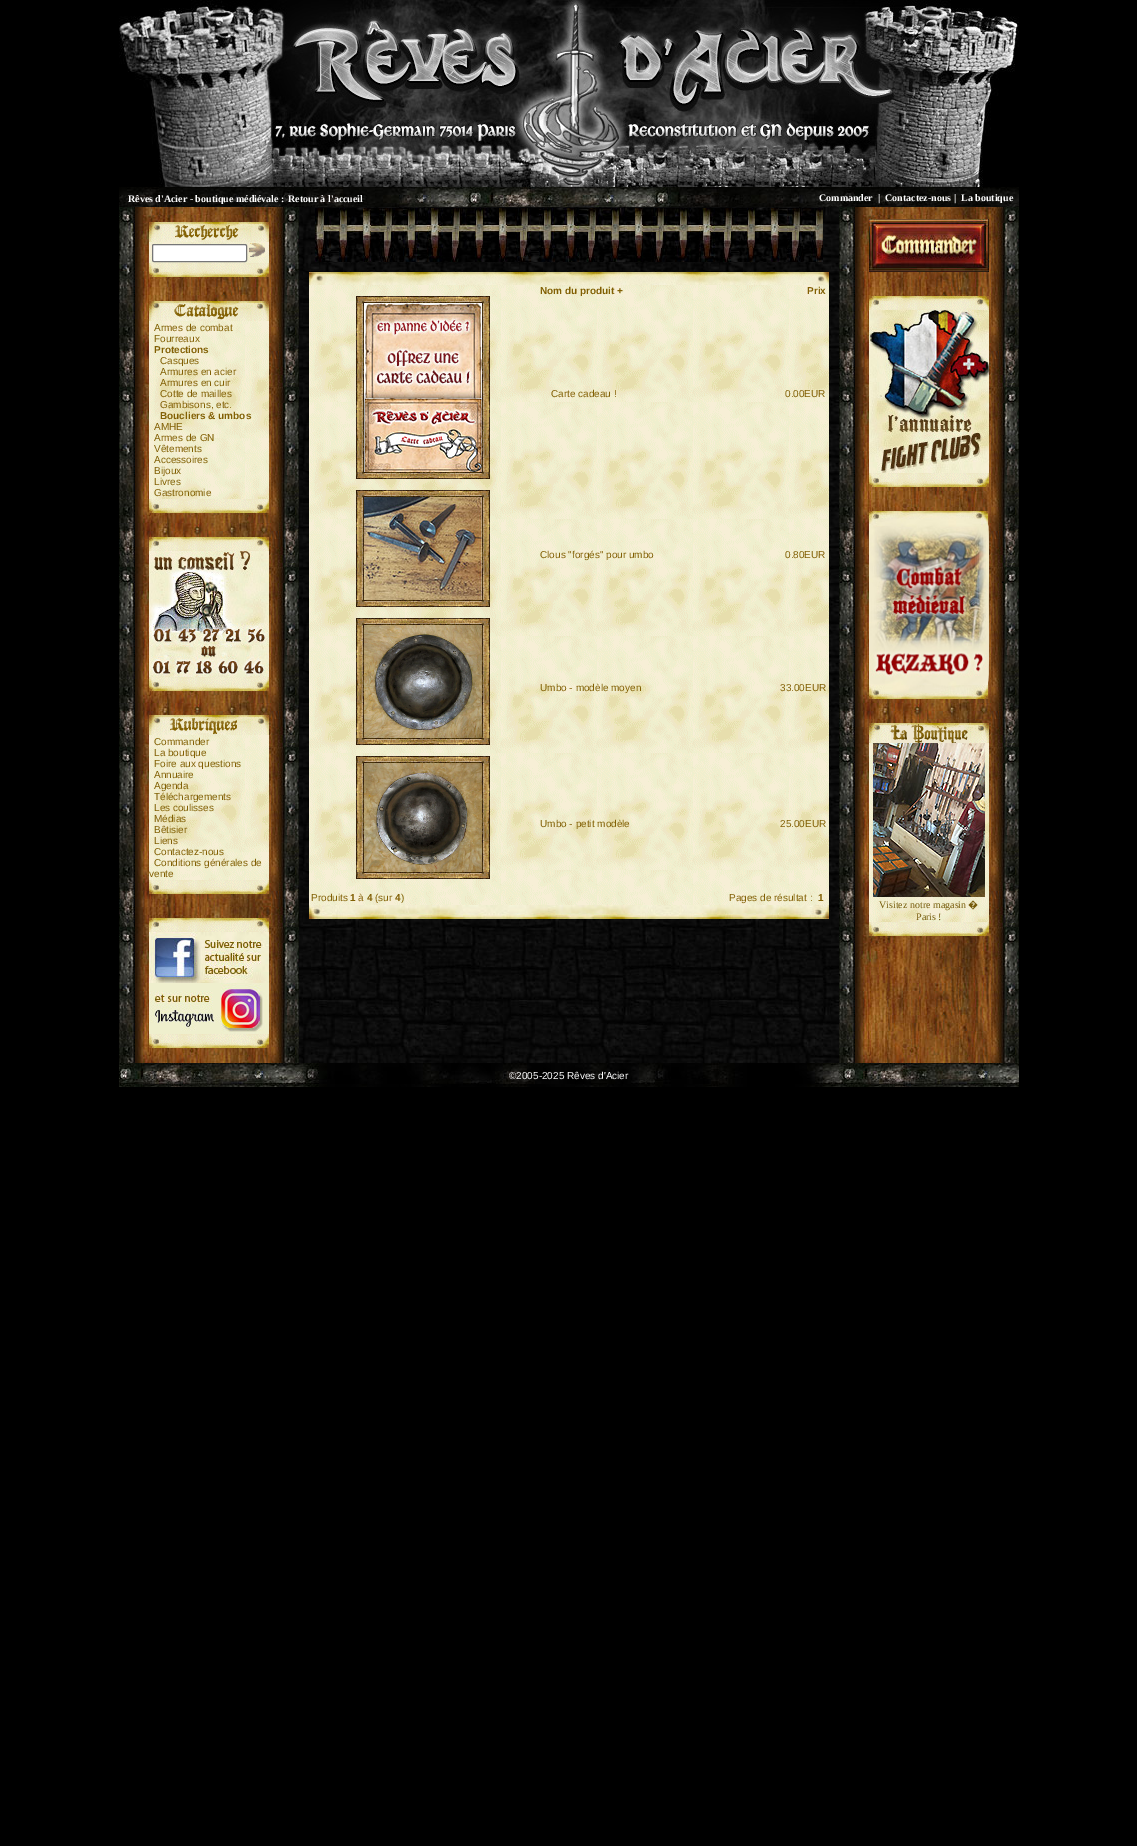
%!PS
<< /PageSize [1137 1846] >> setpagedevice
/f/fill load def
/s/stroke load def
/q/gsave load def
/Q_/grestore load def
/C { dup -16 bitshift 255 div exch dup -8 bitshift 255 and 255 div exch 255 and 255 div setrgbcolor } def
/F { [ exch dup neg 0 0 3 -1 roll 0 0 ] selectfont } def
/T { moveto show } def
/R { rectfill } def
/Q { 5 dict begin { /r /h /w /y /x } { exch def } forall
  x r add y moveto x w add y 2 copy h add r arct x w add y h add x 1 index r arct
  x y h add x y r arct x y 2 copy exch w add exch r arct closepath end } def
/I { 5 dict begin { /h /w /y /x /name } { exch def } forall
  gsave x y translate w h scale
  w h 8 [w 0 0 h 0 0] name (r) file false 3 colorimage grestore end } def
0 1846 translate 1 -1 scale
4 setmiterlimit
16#000000 C
0 0 1137 1846 R
(1.rgb) 119 0 900 187 I
(2.rgb) 119 187 900 20 I
/LiberationSerif-Bold 10 F
16#FFFFFF C
(Rêves d'Acier - boutique médiévale :) 128 202 T
(Retour à l'accueil) 288 202 T
(Commander) 819 201 T
(|) 878 201 T
(Contactez-nous |) 885 201 T
(La boutique) 961 201 T
(3.rgb) 299 207 540 856 I
(4.rgb) 119 207 180 856 I
/LiberationSerif-Regular 16 F
16#000000 C
(.) 122 640 T
(5.rgb) 149 222 120 20 I
(6.rgb) 149 242 120 21 I
16#FFFFFF C
152.5 244.5 94 17 1.5 Q q f Q_
16#767676 C
s
(7.rgb) 249 243 16 14 I
(8.rgb) 149 263 120 14 I
(9.rgb) 149 301 120 20 I
(10.rgb) 149 321 120 178 I
/LiberationSans-Regular 10 F
16#826004 C
(Armes de combat) 154 331 T
(Fourreaux) 154 342 T
/LiberationSans-Bold 10 F
(Protections) 154 353 T
/LiberationSans-Regular 10 F
(Casques) 160 364 T
(Armures en acier) 160 375 T
(Armures en cuir) 160 386 T
(Cotte de mailles) 160 397 T
(Gambisons, etc.) 160 408 T
/LiberationSans-Bold 10 F
(Boucliers & umbos) 160 419 T
/LiberationSans-Regular 10 F
(AMHE) 154 430 T
(Armes de GN) 154 441 T
(Vêtements) 154 452 T
(Accessoires) 154 463 T
(Bijoux) 154 474 T
(Livres) 154 485 T
(Gastronomie) 154 496 T
(8.rgb) 149 499 120 14 I
(11.rgb) 149 537 120 14 I
(12.rgb) 149 551 120 126 I
(8.rgb) 149 677 120 14 I
(13.rgb) 149 715 120 20 I
(14.rgb) 149 735 120 145 I
(Commander) 154 745 T
(La boutique) 154 756 T
(Foire aux questions) 154 767 T
(Annuaire) 154 778 T
(Agenda) 154 789 T
(Téléchargements) 154 800 T
(Les coulisses) 154 811 T
(Médias) 154 822 T
(Bêtisier) 154 833 T
(Liens) 154 844 T
(Contactez-nous) 154 855 T
(Conditions générales de) 154 866 T
(vente) 149 877 T
(8.rgb) 149 880 120 14 I
(11.rgb) 149 918 120 14 I
(15.rgb) 149 932 120 51 I
(16.rgb) 149 983 120 51 I
(8.rgb) 149 1034 120 14 I
/LiberationSerif-Regular 16 F
16#000000 C
(.) 285 640 T
(17.rgb) 315 208 508 54 I
(18.rgb) 309 272 520 13 I
(19.rgb) 309 285 520 620 I
/LiberationSans-Bold 10 F
16#826004 C
(Nom du produit +) 540 294 T
(Prix) 807 294 T
(20.rgb) 356 296 134 7 I
(21.rgb) 356 303 8 169 I
(22.rgb) 364 303 118 169 I
(23.rgb) 482 303 8 169 I
(24.rgb) 356 472 134 7 I
/LiberationSans-Regular 10 F
(Carte cadeau !) 551 397 T
(0.00EUR) 785 397 T
(20.rgb) 356 490 134 7 I
(25.rgb) 356 497 8 103 I
(26.rgb) 364 497 118 103 I
(27.rgb) 482 497 8 103 I
(24.rgb) 356 600 134 7 I
(Clous "forgés" pour umbo) 540 558 T
(0.80EUR) 785 558 T
(20.rgb) 356 618 134 7 I
(28.rgb) 356 625 8 113 I
(29.rgb) 364 625 118 113 I
(30.rgb) 482 625 8 113 I
(24.rgb) 356 738 134 7 I
(Umbo - modèle moyen) 540 691 T
(33.00EUR) 780 691 T
(20.rgb) 356 756 134 7 I
(31.rgb) 356 763 8 109 I
(32.rgb) 364 763 118 109 I
(33.rgb) 482 763 8 109 I
(24.rgb) 356 872 134 7 I
(Umbo - petit modèle) 540 827 T
(25.00EUR) 780 827 T
(Produits) 311 901 T
/LiberationSans-Bold 10 F
(1) 350 901 T
/LiberationSans-Regular 10 F
(à) 358 901 T
/LiberationSans-Bold 10 F
(4) 367 901 T
/LiberationSans-Regular 10 F
(\(sur) 375 901 T
/LiberationSans-Bold 10 F
(4) 395 901 T
/LiberationSans-Regular 10 F
(\)) 401 901 T
(Pages de résultat :) 729 901 T
/LiberationSans-Bold 10 F
(1) 818 901 T
(34.rgb) 309 905 520 14 I
(4.rgb) 839 207 180 856 I
/LiberationSerif-Regular 16 F
16#000000 C
(.) 839 583 T
(.) 1001 583 T
(35.rgb) 869 219 120 53 I
(11.rgb) 869 296 120 14 I
(36.rgb) 869 310 120 163 I
(8.rgb) 869 473 120 14 I
(37.rgb) 869 511 120 188 I
(38.rgb) 869 723 120 20 I
(39.rgb) 869 743 120 179 I
(40.rgb) 873 743 112 154 I
/LiberationSerif-Regular 10 F
16#745907 C
(Visitez notre magasin) 879 908 T
/NotoSans-Regular 10 F
(�) 968 908 T
/LiberationSerif-Regular 10 F
(Paris !) 916 920 T
(8.rgb) 869 922 120 14 I
(41.rgb) 119 1063 900 24 I
/LiberationSans-Regular 10 F
16#FFFFFF C
(©2005-2025 Rêves d'Acier) 509 1079 T
showpage
